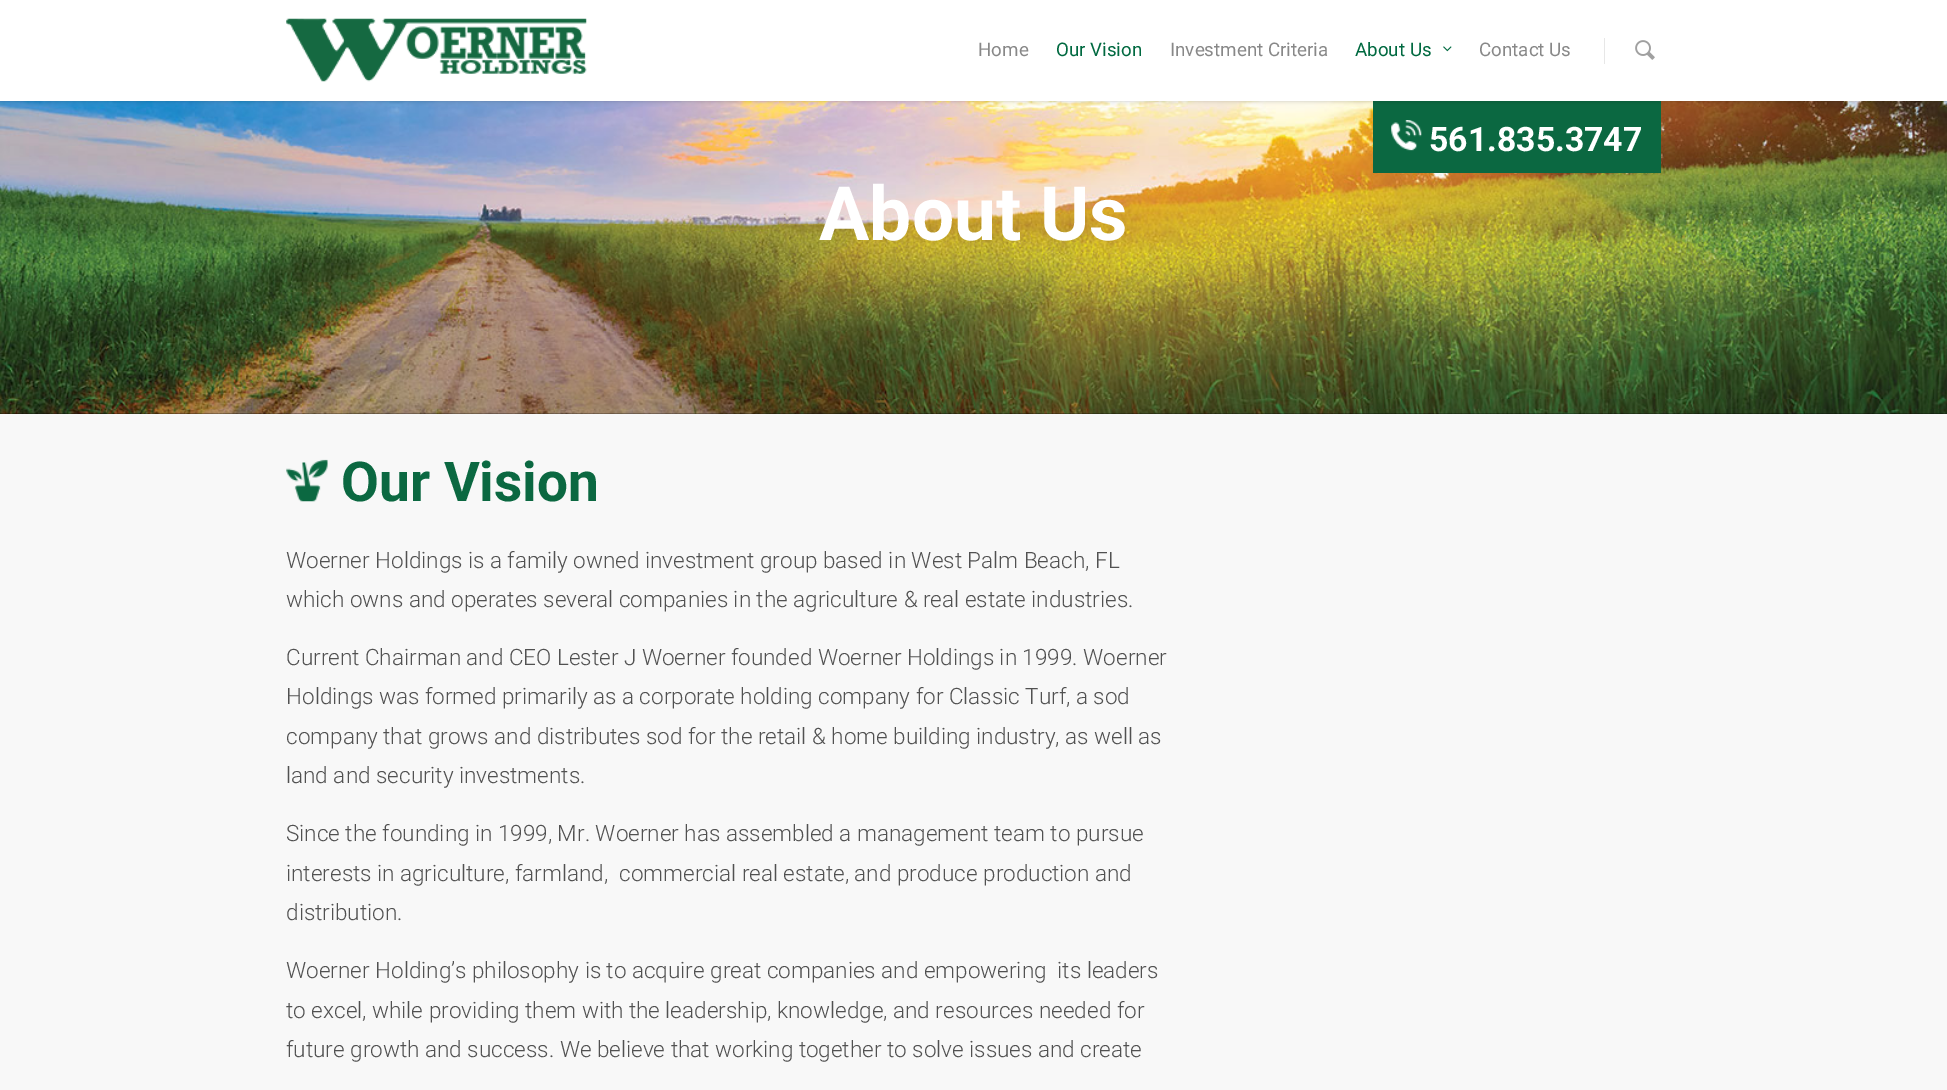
%!PS
<< /PageSize [1947 1090] /PageUsesTransparency true >> setpagedevice
/C { dup -16 bitshift 255 div exch dup -8 bitshift 255 and 255 div exch 255 and 255 div setrgbcolor } def
/F { [ exch dup neg 0 0 3 -1 roll 0 0 ] selectfont } def
/T { moveto show } def
/R { rectfill } def
/A { dup .setfillconstantalpha .setstrokeconstantalpha } def
/Q { 5 dict begin { /r /h /w /y /x } { exch def } forall
  x r add y moveto x w add y 2 copy h add r arct x w add y h add x 1 index r arct
  x y h add x y r arct x y 2 copy exch w add exch r arct closepath end } def
/S { 12 dict begin { /a /b /q /h /w /y /x } { exch def } forall gsave /was 0 def
  9 -2 -9 { dup b mul 4 div /e exch def 1 sub .425 mul 2.718 exch exp 1 add a .99 .min exch div /now exch def
    1 1 now sub 1 was sub div sub A /was now def
    w h .min e 2 mul add 0 gt { x e sub y e sub w e 2 mul add h e 2 mul add
      q e add b .6 mul add w h .min 2 div e add .min 0 .max Q fill } if } for grestore end } def
/I { 5 dict begin { /h /w /y /x /name } { exch def } forall
  gsave x y translate w h scale
  w h 8 [w 0 0 h 0 0] name (r) file false 3 colorimage grestore end } def
0 .pushpdf14devicefilter
0 1090 translate 1 -1 scale
4 setmiterlimit
16#F8F8F8 C
0 0 1947 1090 R
(5.rgb) 0 101 1947 313 I
16#0B6841 C
1373 101 288 72 R
16#000000 C
0 0 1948 101 0 2 .22 S
16#FFFFFF C
0 0 1947 101 R
(1.rgb) 286 18 301 64 I
/Roboto-Regular 18.75 F
16#888888 C
(Home) 978 56 T
16#006940 C
(Our Vision) 1056 56 T
16#888888 C
(Investment Criteria) 1170 56 T
16#006940 C
(About Us) 1355 56 T
(2.rgb) 1443 46 9 6 I
16#888888 C
(Contact Us) 1479 56 T
16#E7E7E7 C
1604 38 1 26 R
(3.rgb) 1635 40 20 20 I
(4.rgb) 1391 120 31 31 I
/Roboto-Bold 33.75 F
16#FFFFFF C
(561.835.3747) 1429 151 T
/Roboto-Bold 75 F
(About Us) 819 240 T
(6.rgb) 286 459 42 43 I
/Roboto-Bold 55 F
16#0B6841 C
(Our Vision) 341 501 T
/Roboto-Light 22.5 F
16#515151 C
(Woerner Holdings is a family owned investment group based in West Palm Beach, FL) 286 568 T
(which owns and operates several companies in the agriculture & real estate industries.) 286 607 T
(Current Chairman and CEO Lester J Woerner founded Woerner Holdings in 1999. Woerner) 286 665 T
(Holdings was formed primarily as a corporate holding company for Classic Turf, a sod) 286 704 T
(company that grows and distributes sod for the retail & home building industry, as well as) 286 744 T
(land and security investments.) 286 783 T
(Since the founding in 1999, Mr. Woerner has assembled a management team to pursue) 286 841 T
(interests in agriculture, farmland,  commercial real estate, and produce production and) 286 881 T
(distribution.) 286 920 T
(Woerner Holding’s philosophy is to acquire great companies and empowering  its leaders) 286 978 T
(to excel, while providing them with the leadership, knowledge, and resources needed for) 286 1018 T
(future growth and success. We believe that working together to solve issues and create) 286 1057 T
.poppdf14devicefilter showpage
